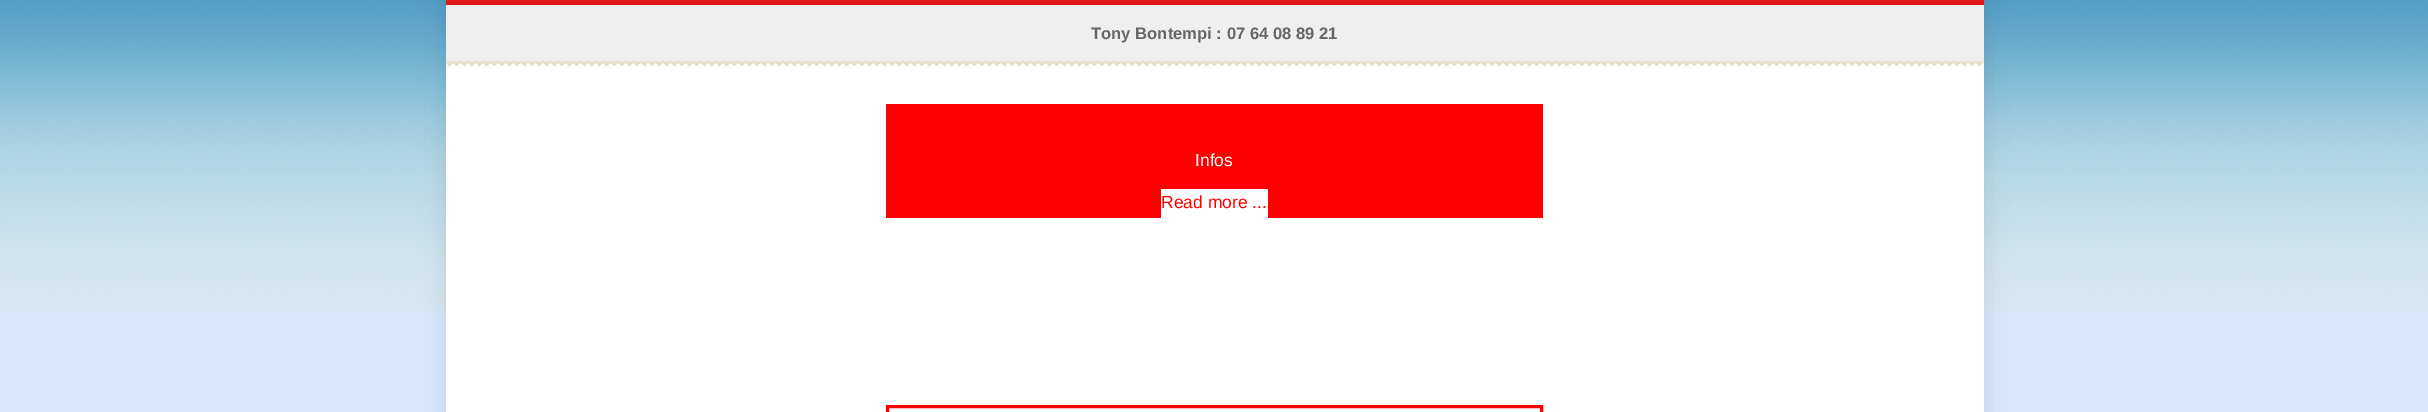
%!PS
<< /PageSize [2428 412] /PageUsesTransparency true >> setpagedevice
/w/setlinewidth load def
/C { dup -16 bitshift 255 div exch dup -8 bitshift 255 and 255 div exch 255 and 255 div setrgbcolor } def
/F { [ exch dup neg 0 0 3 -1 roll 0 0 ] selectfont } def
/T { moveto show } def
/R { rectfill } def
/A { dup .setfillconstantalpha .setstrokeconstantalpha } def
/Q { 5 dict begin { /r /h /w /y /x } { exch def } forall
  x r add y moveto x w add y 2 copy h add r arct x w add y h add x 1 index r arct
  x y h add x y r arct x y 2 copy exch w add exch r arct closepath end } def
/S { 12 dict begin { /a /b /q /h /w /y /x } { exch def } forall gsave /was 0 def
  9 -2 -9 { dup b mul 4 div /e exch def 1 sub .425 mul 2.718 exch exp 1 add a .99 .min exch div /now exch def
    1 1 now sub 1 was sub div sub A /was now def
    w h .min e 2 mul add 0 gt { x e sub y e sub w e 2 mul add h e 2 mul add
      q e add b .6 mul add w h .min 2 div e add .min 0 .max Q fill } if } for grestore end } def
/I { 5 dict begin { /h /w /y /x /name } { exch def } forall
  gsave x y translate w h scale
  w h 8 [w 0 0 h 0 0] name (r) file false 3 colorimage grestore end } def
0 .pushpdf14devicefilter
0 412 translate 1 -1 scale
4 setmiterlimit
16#D7E8FF C
0 0 2428 412 R
(1.rgb) 0 0 2428 313 I
16#000000 C
446 0 1538 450 0 12.5 .1 S
16#FFFFFF C
446 61 1538 351 R
16#DF1717 C
446 0 1538 5 R
16#EFEFEF C
446 5 1538 56 R
/LiberationSans-Bold 16.6 F
16#666666 C
(Tony Bontempi : 07 64 08 89 21) 1091 39 T
(2.rgb) 446 61 1538 6 I
16#FF0000 C
886 104 657 114 R
/LiberationSans-Regular 17.5 F
16#FFFFFF C
(Infos) 1195 166 T
1161 189 107 29 R
16#FF0000 C
(Read more ...) 1161 208 T
3 w
887.5 406.5 654 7 rectstroke
.poppdf14devicefilter showpage
